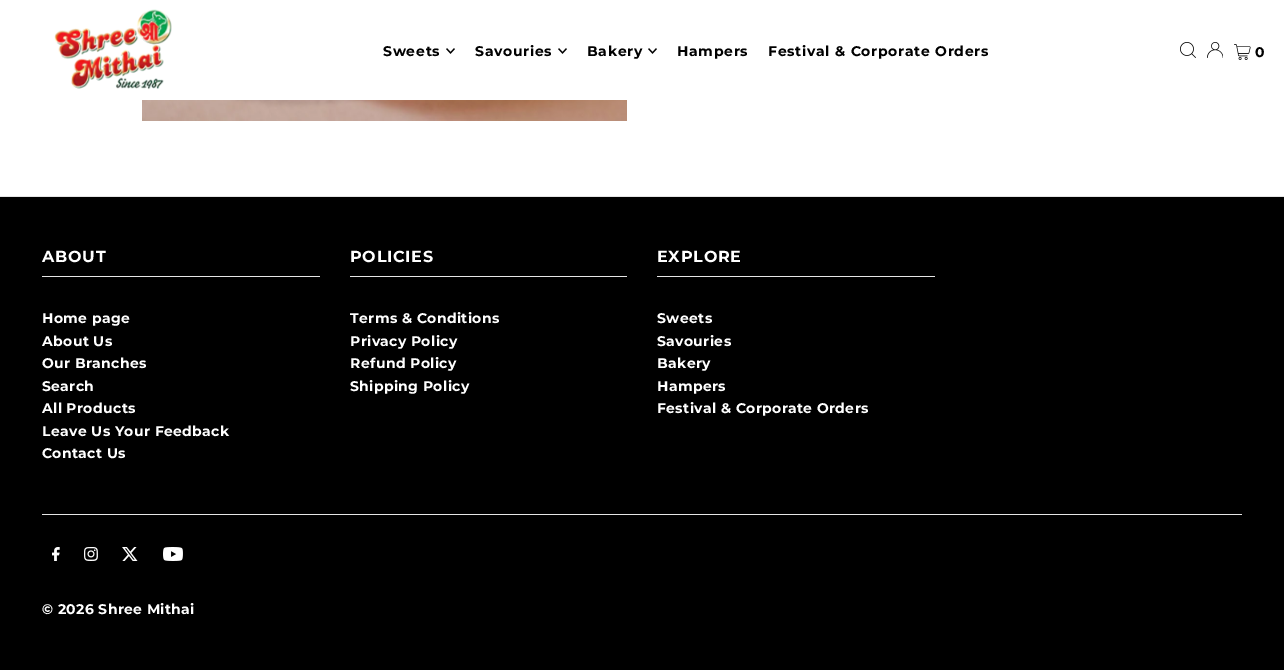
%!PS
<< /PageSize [1284 670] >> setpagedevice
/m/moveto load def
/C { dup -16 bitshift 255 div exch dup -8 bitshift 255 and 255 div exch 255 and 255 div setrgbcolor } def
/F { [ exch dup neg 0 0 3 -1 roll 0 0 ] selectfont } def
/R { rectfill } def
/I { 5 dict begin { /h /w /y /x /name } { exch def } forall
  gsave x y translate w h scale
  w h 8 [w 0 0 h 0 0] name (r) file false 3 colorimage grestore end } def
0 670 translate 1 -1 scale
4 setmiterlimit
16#FFFFFF C
0 0 1284 670 R
(1.rgb) 54 9 118 81 I
/Montserrat-Bold 14 F
16#000000 C
383 56 m .7 0 (Sweets) ashow
(2.rgb) 446 48 9 6 I
475 56 m .7 0 (Savouries) ashow
(2.rgb) 558 48 9 6 I
587 56 m .7 0 (Bakery) ashow
(2.rgb) 648 48 9 6 I
677 56 m .7 0 (Hampers) ashow
768 56 m .7 0 (Festival & Corporate Orders) ashow
(3.rgb) 1180 42 16 16 I
(4.rgb) 1207 42 16 16 I
(5.rgb) 1234 44 17 16 I
1255 57 m .35 0 (0) ashow
(6.rgb) 142 100 485 21 I
0 197 1284 473 R
16#E5E5E5 C
0 196 1284 1 R
42 276 278 1 R
/Montserrat-Bold 16 F
16#FFFFFF C
42 262 m .75 0 (ABOUT) ashow
/Montserrat-Bold 14 F
42 323 m .35 0 (Home page) ashow
42 346 m .35 0 (About Us) ashow
42 368 m .35 0 (Our Branches) ashow
42 391 m .35 0 (Search) ashow
42 413 m .35 0 (All Products) ashow
42 436 m .35 0 (Leave Us Your Feedback) ashow
42 458 m .35 0 (Contact Us) ashow
16#E5E5E5 C
350 276 277 1 R
/Montserrat-Bold 16 F
16#FFFFFF C
350 262 m .75 0 (POLICIES) ashow
/Montserrat-Bold 14 F
350 323 m .35 0 (Terms & Conditions) ashow
350 346 m .35 0 (Privacy Policy) ashow
350 368 m .35 0 (Refund Policy) ashow
350 391 m .35 0 (Shipping Policy) ashow
16#E5E5E5 C
657 276 278 1 R
/Montserrat-Bold 16 F
16#FFFFFF C
657 262 m .75 0 (EXPLORE) ashow
/Montserrat-Bold 14 F
657 323 m .35 0 (Sweets) ashow
657 346 m .35 0 (Savouries) ashow
657 368 m .35 0 (Bakery) ashow
657 391 m .35 0 (Hampers) ashow
657 413 m .35 0 (Festival & Corporate Orders) ashow
16#E5E5E5 C
42 514 1200 1 R
(7.rgb) 52 547 8 14 I
(8.rgb) 84 547 14 14 I
(9.rgb) 122 547 16 14 I
(10.rgb) 163 547 20 14 I
16#FFFFFF C
42 614 m .35 0 (© 2026 Shree Mithai) ashow
showpage
